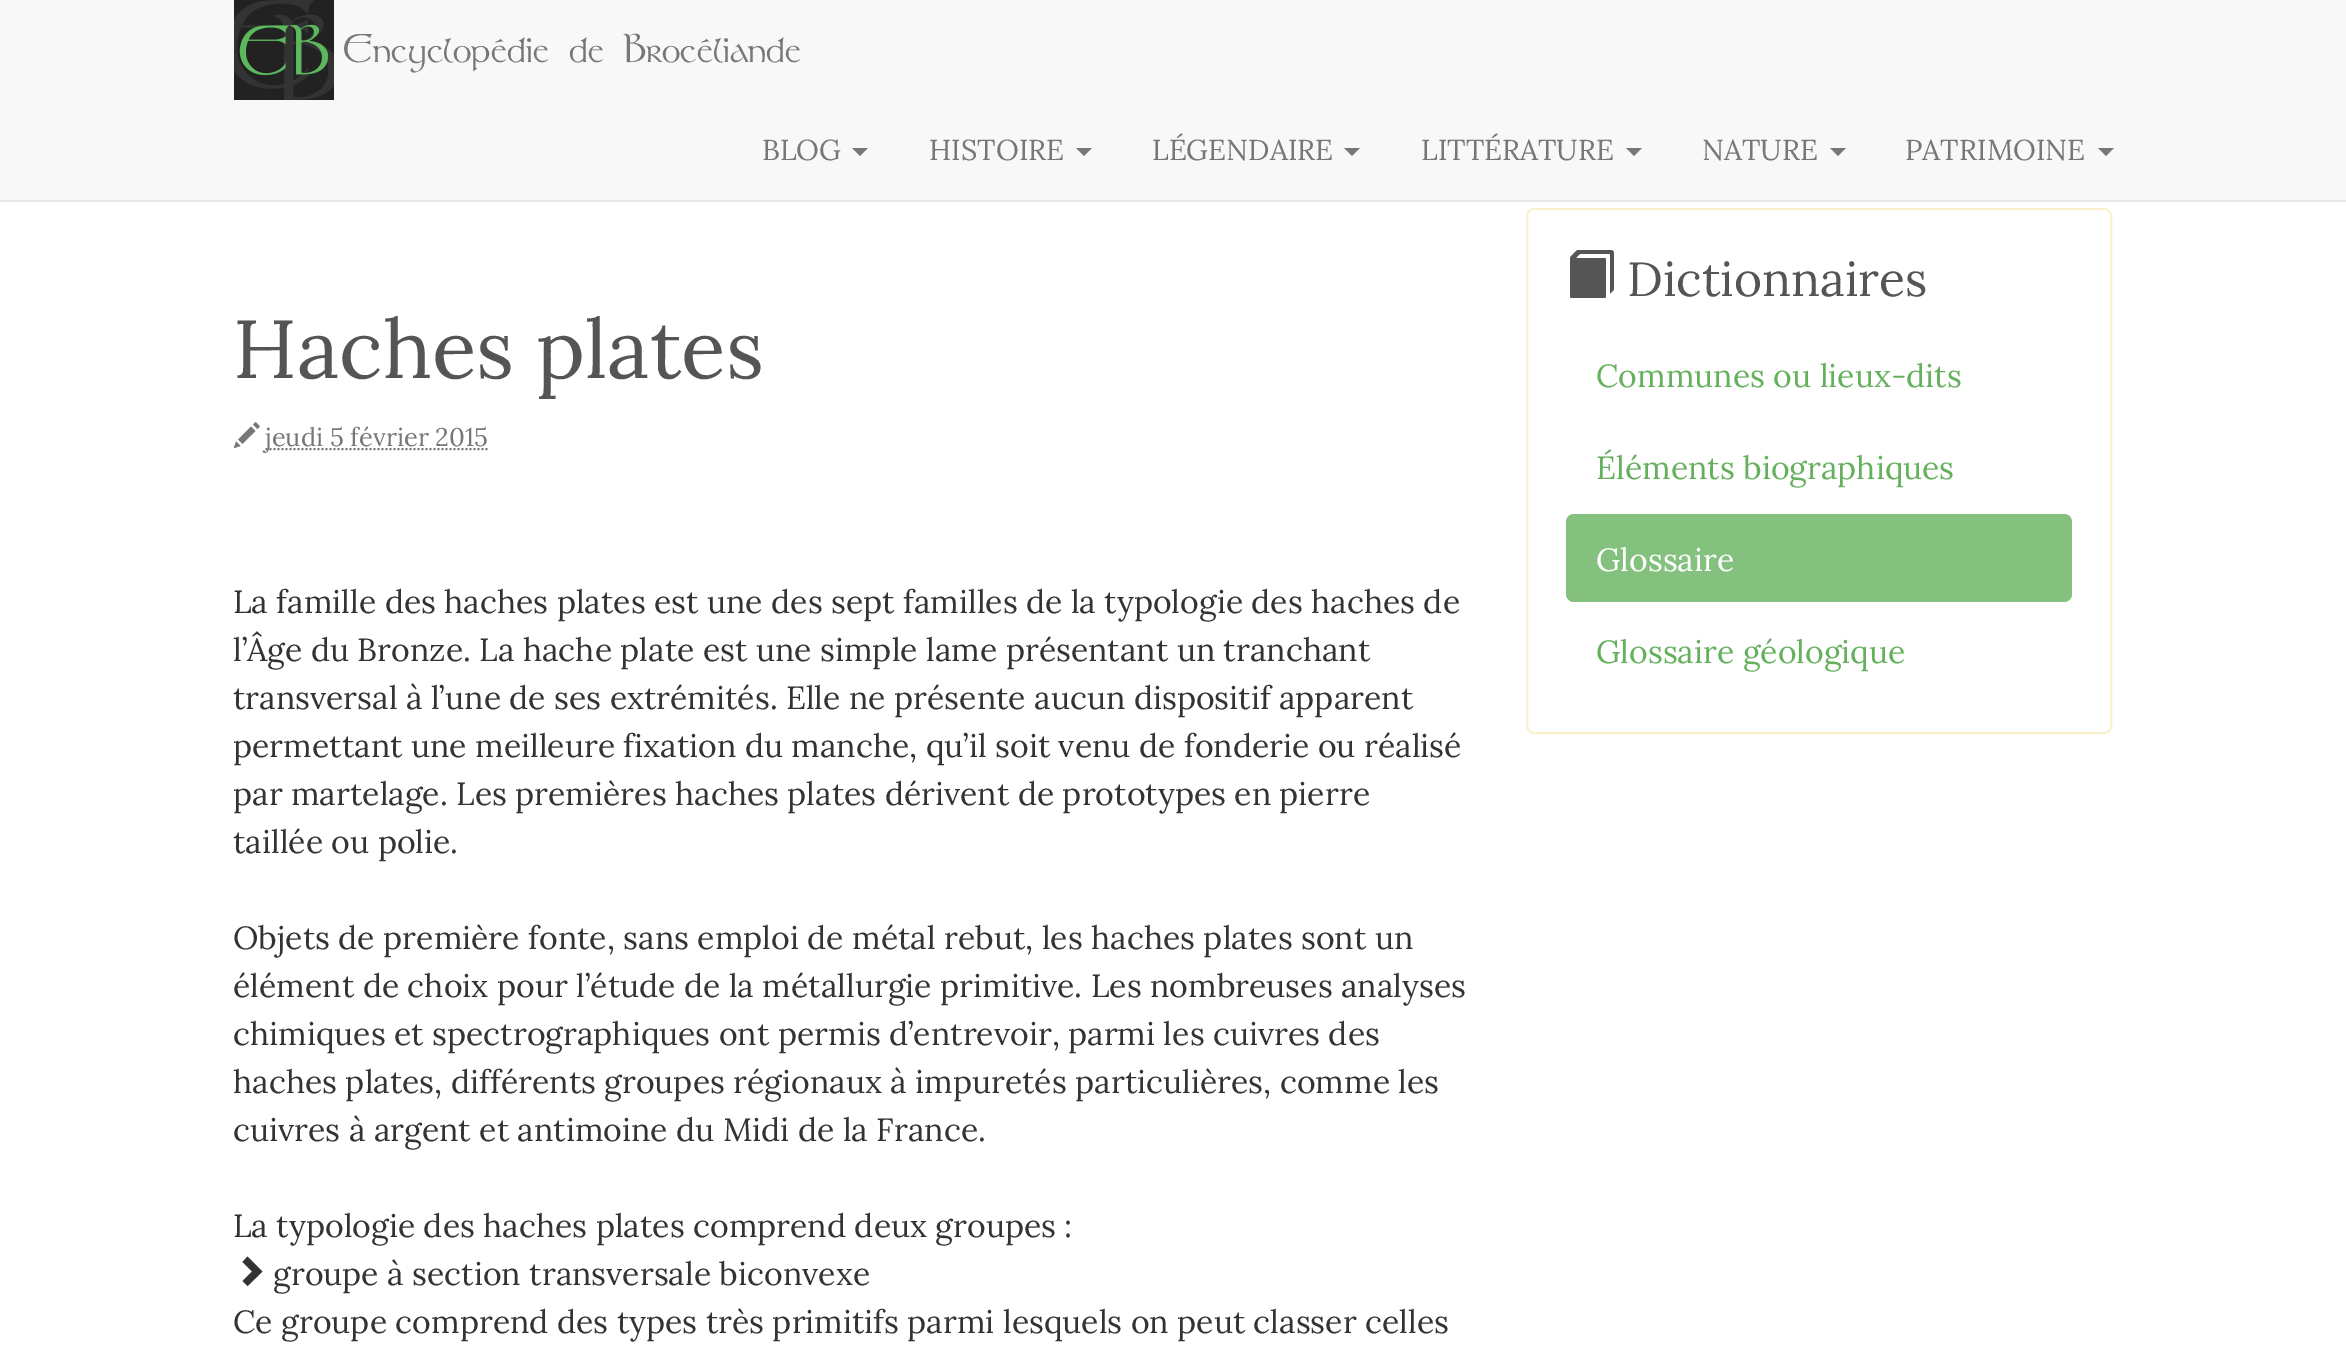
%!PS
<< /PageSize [2346 1360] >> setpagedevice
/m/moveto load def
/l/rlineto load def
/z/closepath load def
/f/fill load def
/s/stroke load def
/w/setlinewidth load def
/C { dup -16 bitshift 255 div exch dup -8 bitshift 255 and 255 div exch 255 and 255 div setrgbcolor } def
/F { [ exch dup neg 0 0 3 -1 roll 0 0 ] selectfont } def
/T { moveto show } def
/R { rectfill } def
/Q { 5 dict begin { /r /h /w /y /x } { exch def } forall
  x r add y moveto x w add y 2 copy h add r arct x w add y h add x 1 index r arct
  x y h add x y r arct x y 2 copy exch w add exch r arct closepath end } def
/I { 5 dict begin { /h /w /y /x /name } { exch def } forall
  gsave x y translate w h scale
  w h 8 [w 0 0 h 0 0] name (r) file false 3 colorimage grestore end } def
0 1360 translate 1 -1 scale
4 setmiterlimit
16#FFFFFF C
0 0 2346 1360 R
16#F8F8F8 C
0 0 2346 200 R
16#E7E7E7 C
0 200 2346 2 R
(1.rgb) 234 0 100 100 I
/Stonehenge-Thin 40 F
16#777777 C
(Encyclopédie de Brocéliande) 343 62 T
/Lora-Regular 28.75 F
(BLOG) 762 160 T
852 148 m 16 0 l -8 8 l z f
(HISTOIRE) 929 160 T
1076 148 m 16 0 l -8 8 l z f
(LÉGENDAIRE) 1152 160 T
1344 148 m 16 0 l -8 8 l z f
(LITTÉRATURE) 1421 160 T
1626 148 m 16 0 l -8 8 l z f
(NATURE) 1702 160 T
1830 148 m 16 0 l -8 8 l z f
(PATRIMOINE) 1905 160 T
2098 148 m 16 0 l -8 8 l z f
/Lora-Regular 82 F
16#555555 C
(Haches plates) 233 378 T
(2.rgb) 233 422 27 27 I
16#777777 C
2 w
[2 2] 0 setdash
265.5 449 m 224 0 l s
/Lora-Regular 25.5 F
(jeudi 5 février 2015) 265 446 T
/Lora-Regular 32 F
16#333333 C
(La famille des haches plates est une des sept familles de la typologie des haches de) 233 613 T
(l’Âge du Bronze. La hache plate est une simple lame présentant un tranchant) 233 661 T
(transversal à l’une de ses extrémités. Elle ne présente aucun dispositif apparent) 233 709 T
(permettant une meilleure fixation du manche, qu’il soit venu de fonderie ou réalisé) 233 757 T
(par martelage. Les premières haches plates dérivent de prototypes en pierre) 233 805 T
(taillée ou polie.) 233 853 T
(Objets de première fonte, sans emploi de métal rebut, les haches plates sont un) 233 949 T
(élément de choix pour l’étude de la métallurgie primitive. Les nombreuses analyses) 233 997 T
(chimiques et spectrographiques ont permis d’entrevoir, parmi les cuivres des) 233 1045 T
(haches plates, différents groupes régionaux à impuretés particulières, comme les) 233 1093 T
(cuivres à argent et antimoine du Midi de la France.) 233 1141 T
(La typologie des haches plates comprend deux groupes :) 233 1237 T
262.5 1271.5 m -15 14.5 l -5 -5 l 9.5 -9.5 l -9.5 -9.5 l 5 -5.5 l z f
(groupe à section transversale biconvexe) 273 1285 T
(Ce groupe comprend des types très primitifs parmi lesquels on peut classer celles) 233 1333 T
16#FAF2CC C
[] 0 setdash
1527 209 584 524 7 Q s
(3.rgb) 1570 250 44 48 I
/Lora-Regular 48 F
16#555555 C
(Dictionnaires) 1627 296 T
/Lora-Regular 32 F
16#64B05C C
(Communes ou lieux-dits) 1596 387 T
(Éléments biographiques) 1596 479 T
16#85C17E C
1566 514 506 88 8 Q f
16#FFFFFF C
(Glossaire) 1596 571 T
16#64B05C C
(Glossaire géologique) 1596 663 T
showpage
